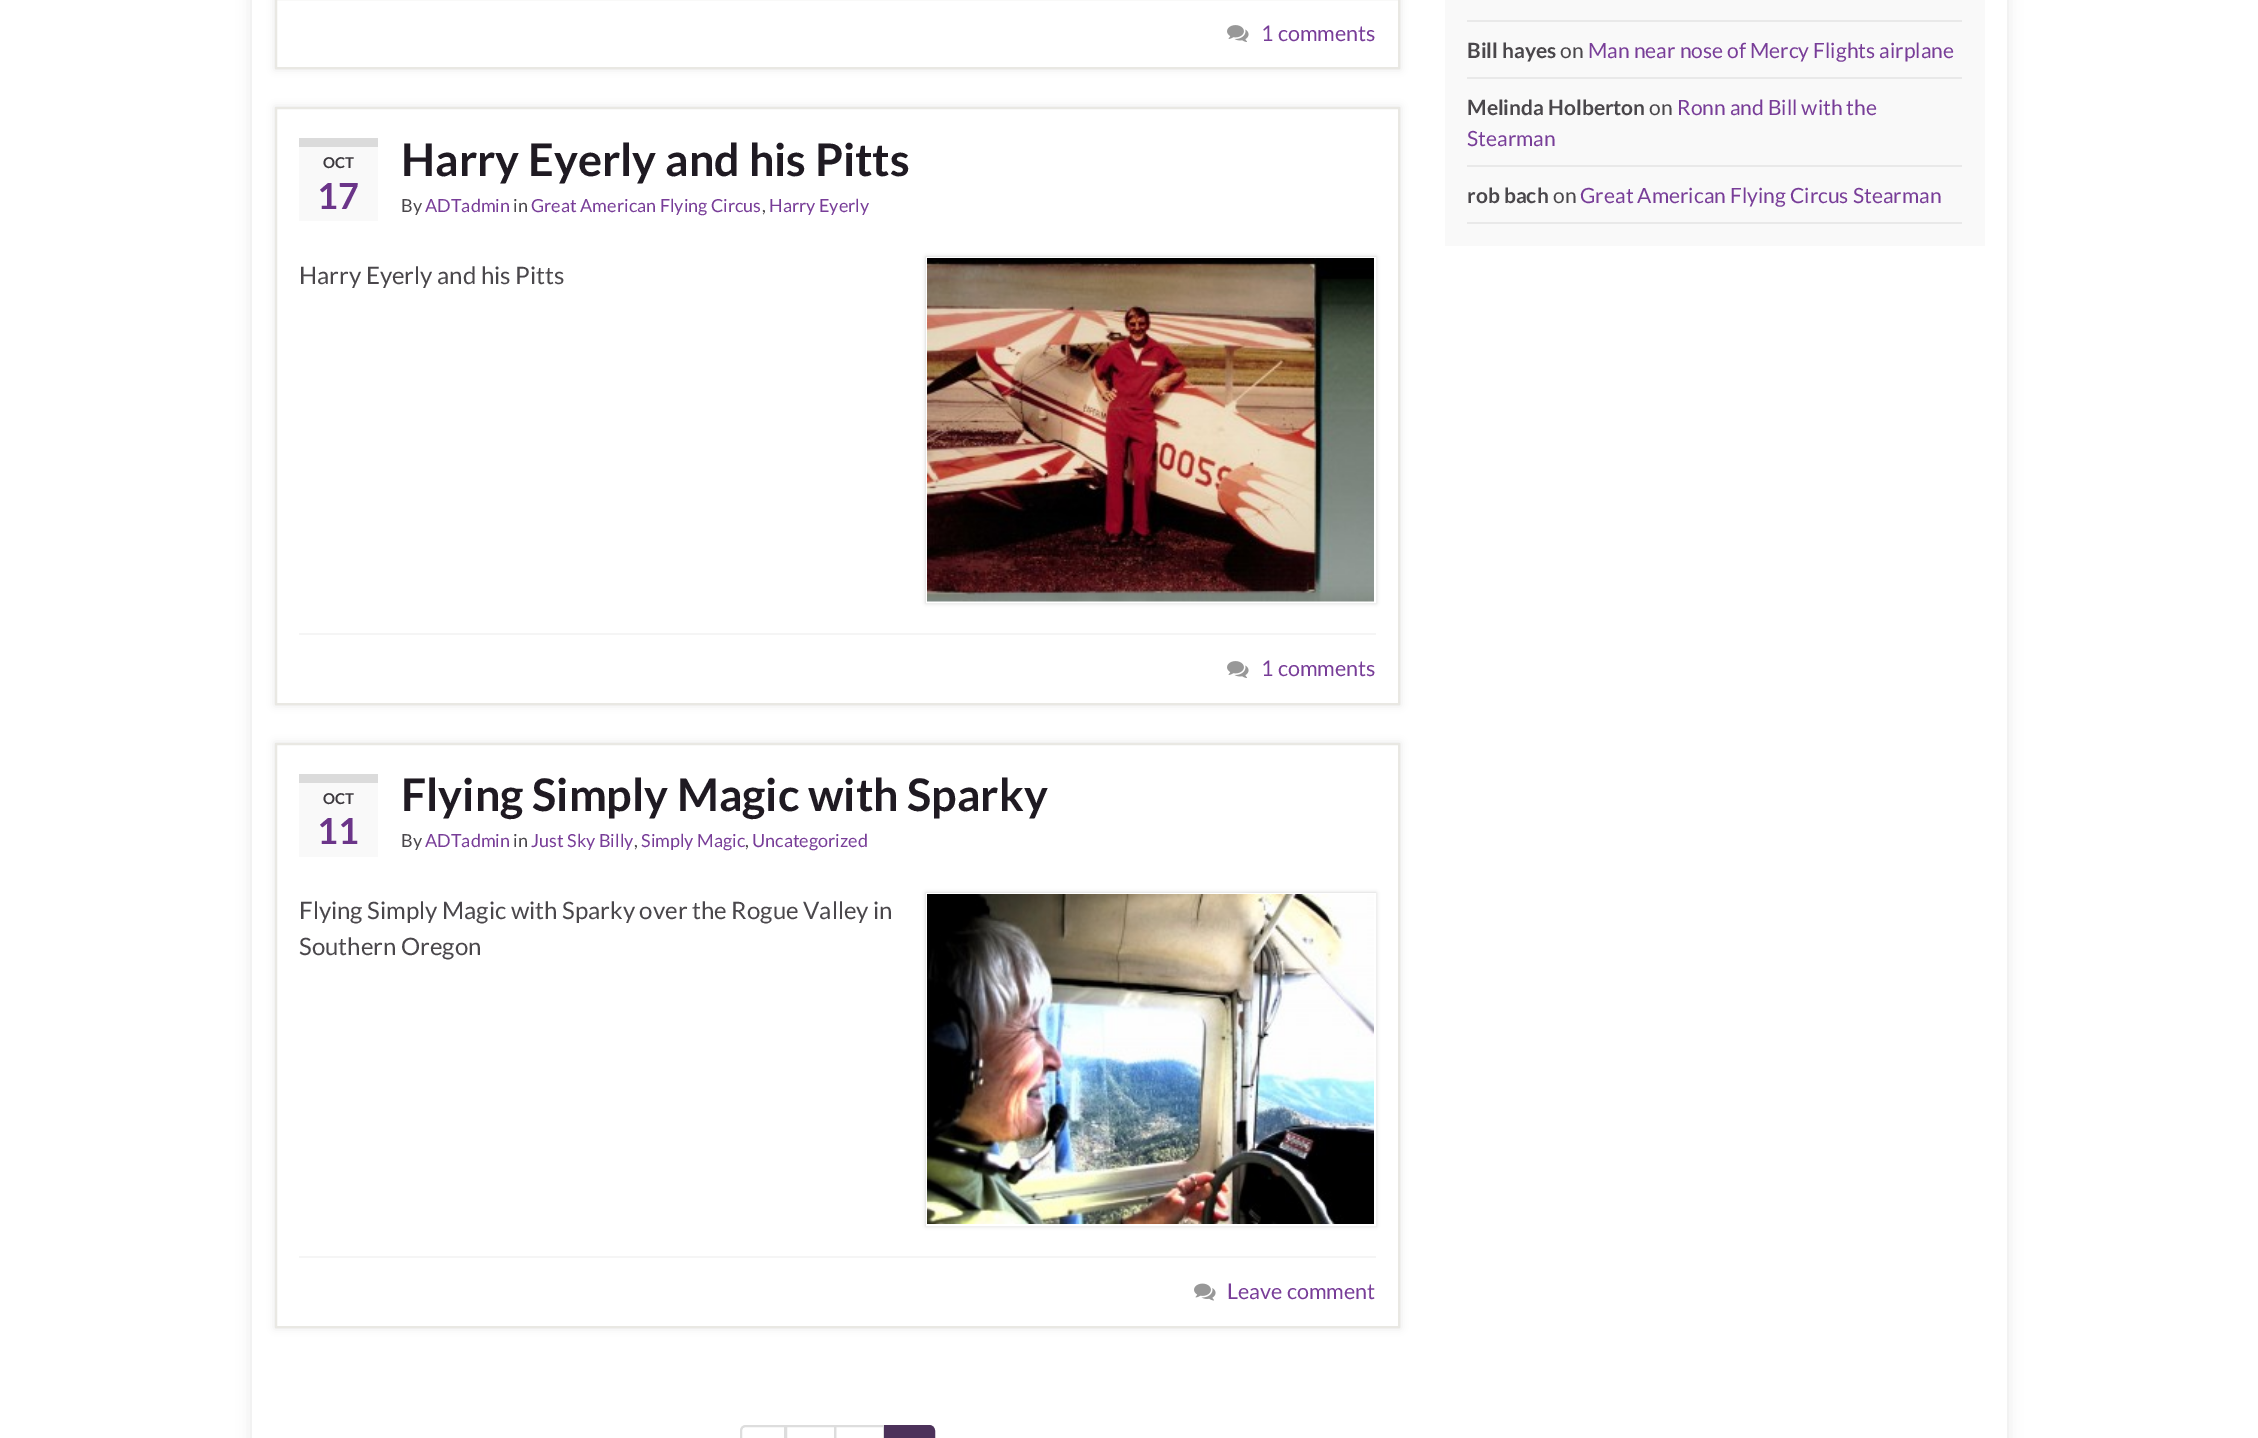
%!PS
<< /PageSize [2258 1438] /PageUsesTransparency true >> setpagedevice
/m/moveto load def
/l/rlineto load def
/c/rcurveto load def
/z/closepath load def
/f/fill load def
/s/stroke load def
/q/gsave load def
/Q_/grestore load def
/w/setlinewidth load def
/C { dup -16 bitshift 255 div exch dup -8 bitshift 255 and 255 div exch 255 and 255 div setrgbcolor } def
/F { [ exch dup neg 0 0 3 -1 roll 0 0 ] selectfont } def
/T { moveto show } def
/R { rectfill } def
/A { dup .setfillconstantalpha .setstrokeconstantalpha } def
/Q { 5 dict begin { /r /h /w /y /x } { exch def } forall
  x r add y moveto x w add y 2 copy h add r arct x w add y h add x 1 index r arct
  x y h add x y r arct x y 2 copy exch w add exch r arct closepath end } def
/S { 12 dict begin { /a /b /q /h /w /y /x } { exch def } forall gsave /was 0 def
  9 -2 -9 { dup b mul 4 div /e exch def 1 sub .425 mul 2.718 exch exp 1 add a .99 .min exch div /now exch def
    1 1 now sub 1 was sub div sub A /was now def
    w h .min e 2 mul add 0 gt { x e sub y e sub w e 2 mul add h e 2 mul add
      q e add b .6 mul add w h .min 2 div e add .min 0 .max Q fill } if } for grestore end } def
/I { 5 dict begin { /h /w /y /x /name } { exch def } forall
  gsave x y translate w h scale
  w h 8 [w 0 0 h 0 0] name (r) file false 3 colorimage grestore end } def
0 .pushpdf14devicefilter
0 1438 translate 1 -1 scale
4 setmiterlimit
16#FFFFFF C
0 0 2258 1438 R
q
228 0 m 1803 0 l 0 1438 l -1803 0 l z 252 -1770 m 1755 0 l 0 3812 l -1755 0 l z eoclip newpath
16#000000 C
252 -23 1755 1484 0 7.5 .1 S
Q_
16#000000 C
275 -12 1125 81 0 4 .1 S
16#FFFFFF C
276 -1 m 1123 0 l 0 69 l -1123 0 l z q f Q_
16#E9E8E3 C
2 w
s
(1.rgb) 1227 25 22 17 I
/Lato-Regular 21.5 F
16#783D98 C
(1 comments) 1261 41 T
16#000000 C
275 107 1125 598 0 4 .1 S
16#FFFFFF C
276 108 m 1123 0 l 0 596 l -1123 0 l z q f Q_
16#E9E8E3 C
s
16#F9F9F9 C
299 147 79 74 R
16#DBDBDB C
299 138 79 9 R
/Lato-Bold 15 F
16#3B383D C
(OCT) 323 168 T
/Lato-Bold 36 F
16#6B3589 C
(17) 317 209 T
/Lato-Bold 45 F
16#1F1A22 C
(Harry Eyerly and his Pitts) 401 176 T
/Lato-Regular 18 F
16#4A474B C
(By) 401 212 T
16#783D98 C
(ADTadmin) 425 212 T
16#4A474B C
(in) 513 212 T
16#783D98 C
(Great American Flying Circus) 531 212 T
16#4A474B C
(,) 762 212 T
16#783D98 C
(Harry Eyerly) 769 212 T
/Lato-Regular 24 F
16#4A474B C
(Harry Eyerly and his Pitts) 299 284 T
16#000000 C
926 257 450 346 0 2 .2 S
16#FFFFFF C
927 258 448 344 rectstroke
(2.rgb) 927 258 447 344 I
16#F5F5F5 C
299 633 1077 2 R
(1.rgb) 1227 661 22 17 I
/Lato-Regular 21.5 F
16#783D98 C
(1 comments) 1261 676 T
16#000000 C
275 743 1125 585 0 4 .1 S
16#FFFFFF C
276 744 m 1123 0 l 0 583 l -1123 0 l z q f Q_
16#E9E8E3 C
s
16#F9F9F9 C
299 783 79 74 R
16#DBDBDB C
299 774 79 9 R
/Lato-Bold 15 F
16#3B383D C
(OCT) 323 804 T
/Lato-Bold 36 F
16#6B3589 C
(11) 317 844 T
/Lato-Bold 45 F
16#1F1A22 C
(Flying Simply Magic with Sparky) 401 811 T
/Lato-Regular 18 F
16#4A474B C
(By) 401 847 T
16#783D98 C
(ADTadmin) 425 847 T
16#4A474B C
(in) 513 847 T
16#783D98 C
(Just Sky Billy) 531 847 T
16#4A474B C
(,) 634 847 T
16#783D98 C
(Simply Magic) 641 847 T
16#4A474B C
(,) 745 847 T
16#783D98 C
(Uncategorized) 752 847 T
/Lato-Regular 24 F
16#4A474B C
(Flying Simply Magic with Sparky over the Rogue Valley in) 299 919 T
(Southern Oregon) 299 955 T
16#000000 C
926 893 450 333 0 2 .2 S
16#FFFFFF C
927 894 448 331 rectstroke
(3.rgb) 927 894 447 330 I
16#F5F5F5 C
299 1256 1077 2 R
(4.rgb) 1194 1283 22 18 I
/Lato-Regular 21.5 F
16#783D98 C
(Leave comment) 1227 1299 T
16#DDDDDD C
746 1426 m 39 0 l 0 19 l -39 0 l -3 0 -5 -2 -5 -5 c 0 -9 l 0 -3 2 -5 5 -5 c z s
786 1426 49 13 rectstroke
835 1426 49 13 rectstroke
16#4C315A C
885 1426 m 44 0 l 3 0 5 2 5 5 c 0 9 l 0 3 -2 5 -5 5 c -44 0 l z q f Q_
s
16#F9F9F9 C
1445 0 540 246 R
16#E9E9E9 C
1467 20 495 2 R
1467 77 495 2 R
/Lato-Bold 21 F
16#4A474B C
(Bill hayes) 1467 58 T
/Lato-Regular 21 F
(on) 1560 58 T
16#783D98 C
(Man near nose of Mercy Flights airplane) 1588 58 T
16#E9E9E9 C
1467 165 495 2 R
/Lato-Bold 21 F
16#4A474B C
(Melinda Holberton) 1467 115 T
/Lato-Regular 21 F
(on) 1649 115 T
16#783D98 C
(Ronn and Bill with the) 1677 115 T
(Stearman) 1467 146 T
16#E9E9E9 C
1467 222 495 2 R
/Lato-Bold 21 F
16#4A474B C
(rob bach) 1467 203 T
/Lato-Regular 21 F
(on) 1553 203 T
16#783D98 C
(Great American Flying Circus Stearman) 1580 203 T
.poppdf14devicefilter showpage
